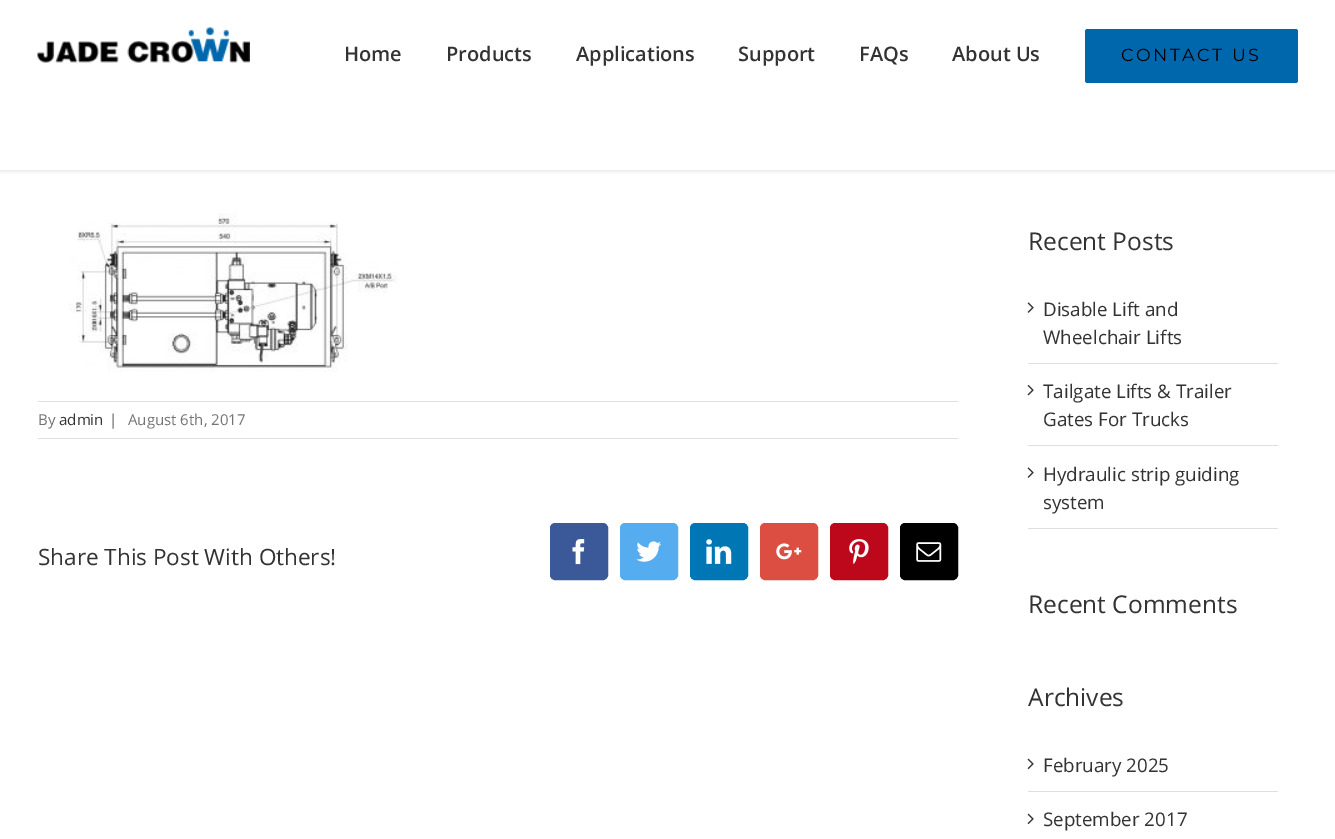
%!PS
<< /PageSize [1335 839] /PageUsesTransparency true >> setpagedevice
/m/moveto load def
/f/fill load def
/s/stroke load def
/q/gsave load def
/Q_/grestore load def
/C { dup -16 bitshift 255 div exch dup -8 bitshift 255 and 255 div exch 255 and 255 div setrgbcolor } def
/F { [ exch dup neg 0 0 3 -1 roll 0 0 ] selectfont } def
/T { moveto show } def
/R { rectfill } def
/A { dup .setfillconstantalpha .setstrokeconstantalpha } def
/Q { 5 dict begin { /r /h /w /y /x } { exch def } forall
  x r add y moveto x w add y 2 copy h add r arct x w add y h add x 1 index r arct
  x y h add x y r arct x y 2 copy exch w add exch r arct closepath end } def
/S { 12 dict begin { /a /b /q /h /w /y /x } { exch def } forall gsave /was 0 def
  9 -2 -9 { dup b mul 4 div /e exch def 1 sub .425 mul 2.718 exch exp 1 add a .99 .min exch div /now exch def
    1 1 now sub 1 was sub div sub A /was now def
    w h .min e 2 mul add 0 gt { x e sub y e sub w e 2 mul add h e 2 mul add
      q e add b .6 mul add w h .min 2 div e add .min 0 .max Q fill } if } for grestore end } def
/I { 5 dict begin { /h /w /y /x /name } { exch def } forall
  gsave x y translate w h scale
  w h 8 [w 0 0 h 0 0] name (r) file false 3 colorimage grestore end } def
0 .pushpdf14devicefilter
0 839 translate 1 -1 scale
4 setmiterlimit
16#FFFFFF C
0 0 1335 839 R
16#000000 C
0 1 1335 170 0 2 .12 S
16#FFFFFF C
0 0 1335 170 R
(1.rgb) 37 27 213 36 I
/OpenSans-SemiBold 20 F
16#333333 C
(Home) 344 61 T
(Products) 446 61 T
(Applications) 576 61 T
(Support) 738 61 T
(FAQs) 859 61 T
(About Us) 952 61 T
16#0067AC C
1085 29 213 54 2.5 Q f
/Montserrat-Thin 17.5 F
16#000000 C
1121 61 m 2.5 0 (CONTACT US) ashow
(2.rgb) 69 213 329 159 I
16#E0DEDE C
38 401 920 1 R
38 438 920 1 R
/OpenSans-Regular 15 F
16#747474 C
(By) 38 425 T
16#333333 C
(admin) 59 425 T
16#747474 C
(|) 109 425 T
(August 6th, 2017) 128 425 T
/OpenSans-Regular 22.5 F
16#333333 C
(Share This Post With Others!) 38 565 T
16#3B5998 C
550.5 523.5 57 56 4.5 Q q f Q_
s
(3.rgb) 572 539 13 26 I
16#55ACEE C
620.5 523.5 57 56 4.5 Q q f Q_
s
(4.rgb) 636 541 25 21 I
16#0077B5 C
690.5 523.5 57 56 4.5 Q q f Q_
s
(5.rgb) 706 539 26 25 I
16#DC4E41 C
760.5 523.5 57 56 4.5 Q q f Q_
s
(6.rgb) 776 543 26 17 I
16#BD081C C
830.5 523.5 57 56 4.5 Q q f Q_
s
(7.rgb) 849 539 20 25 I
16#000000 C
900.5 523.5 57 56 4.5 Q q f Q_
s
(8.rgb) 916 542 26 20 I
/OpenSans-Regular 24.5 F
16#333333 C
(Recent Posts) 1028 250 T
16#E0DEDE C
1028 363 250 1 R
(9.rgb) 1027 302 7 11 I
/OpenSans-Regular 18.75 F
16#333333 C
(Disable Lift and) 1043 316 T
(Wheelchair Lifts) 1043 344 T
16#E0DEDE C
1028 445 250 1 R
(10.rgb) 1027 385 7 11 I
16#333333 C
(Tailgate Lifts & Trailer) 1043 398 T
(Gates For Trucks) 1043 426 T
16#E0DEDE C
1028 528 250 1 R
(9.rgb) 1027 467 7 11 I
16#333333 C
(Hydraulic strip guiding) 1043 481 T
(system) 1043 509 T
/OpenSans-Regular 24.5 F
(Recent Comments) 1028 613 T
(Archives) 1028 706 T
16#E0DEDE C
1028 791 250 1 R
(11.rgb) 1027 758 7 12 I
/OpenSans-Regular 18.75 F
16#333333 C
(February 2025) 1043 772 T
(11.rgb) 1027 813 7 12 I
(September 2017) 1043 826 T
.poppdf14devicefilter showpage
